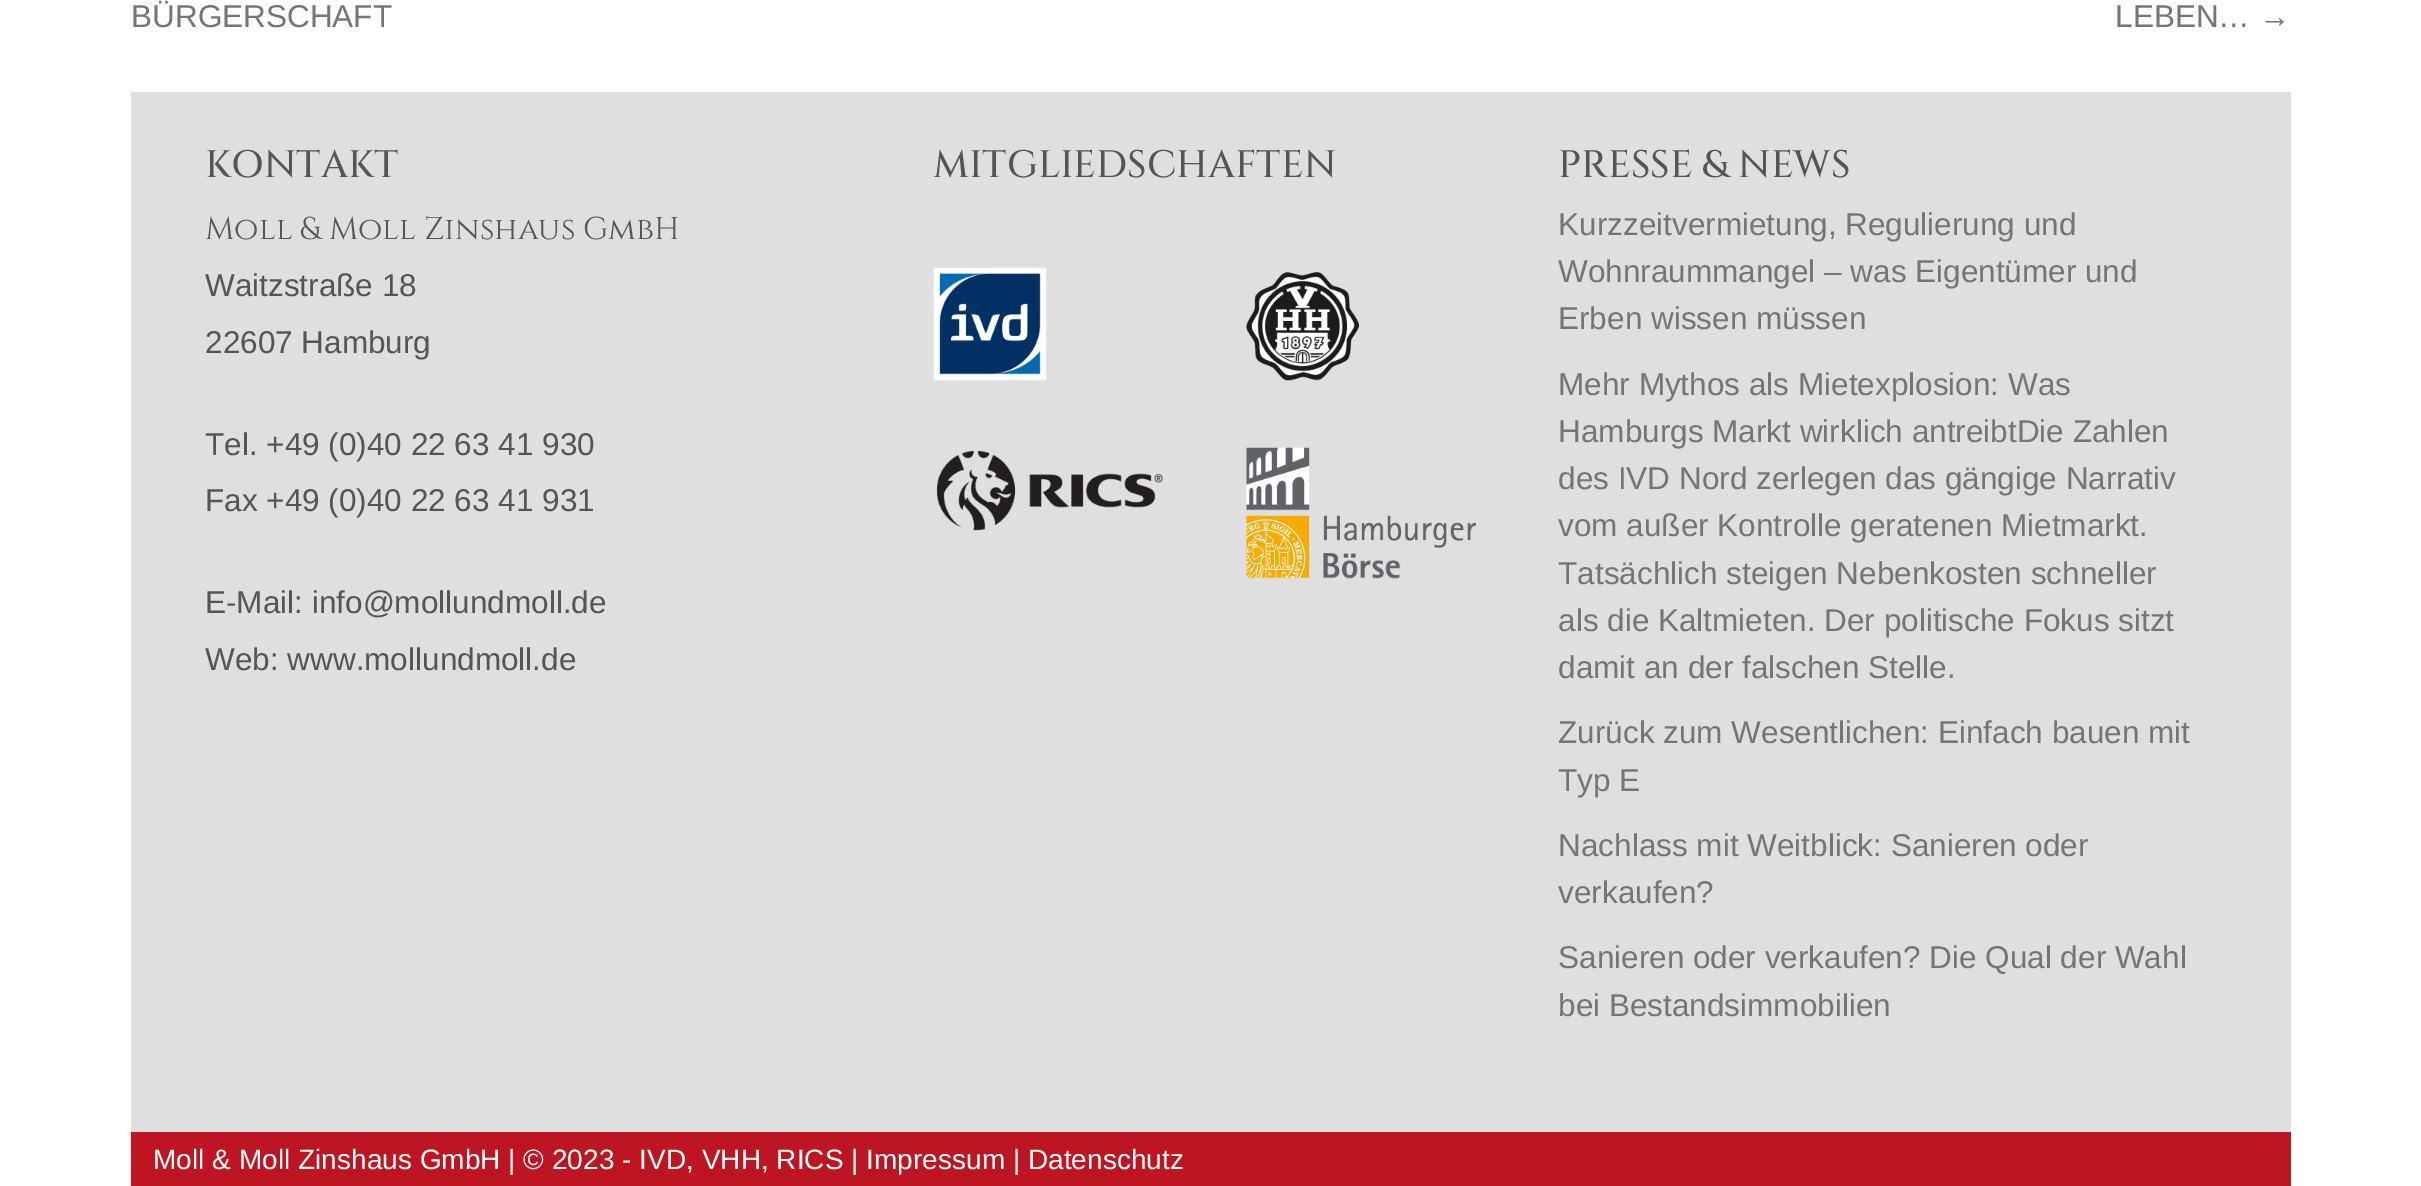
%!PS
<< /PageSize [2421 1186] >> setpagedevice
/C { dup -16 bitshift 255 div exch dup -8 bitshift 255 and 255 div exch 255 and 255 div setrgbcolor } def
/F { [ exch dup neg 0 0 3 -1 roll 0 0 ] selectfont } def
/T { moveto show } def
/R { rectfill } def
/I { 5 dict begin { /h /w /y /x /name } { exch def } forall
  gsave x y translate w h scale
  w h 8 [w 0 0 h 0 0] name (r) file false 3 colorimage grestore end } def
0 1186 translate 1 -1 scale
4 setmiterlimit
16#FFFFFF C
0 0 2421 1186 R
/LiberationSans-Regular 31.5 F
16#757575 C
(BÜRGERSCHAFT) 131 27 T
(LEBEN… →) 2115 27 T
16#DFDFDF C
131 92 2160 1040 R
/Cinzel-Medium 38.25 F
16#555555 C
(KONTAKT) 205 177 T
/Cinzel-Regular 31.5 F
(Moll & Moll Zinshaus GmbH) 205 239 T
/LiberationSans-Regular 31.5 F
(Waitzstraße 18) 205 296 T
(22607 Hamburg) 205 353 T
(Tel. +49 \(0\)40 22 63 41 930) 205 455 T
(Fax +49 \(0\)40 22 63 41 931) 205 511 T
(E-Mail: info@mollundmoll.de) 205 613 T
(Web: www.mollundmoll.de) 205 670 T
/Cinzel-Medium 38.25 F
(MITGLIEDSCHAFTEN) 933 177 T
(1.rgb) 933 267 114 114 I
(2.rgb) 936 450 227 81 I
(3.rgb) 1246 272 113 109 I
(4.rgb) 1246 447 230 132 I
(PRESSE & NEWS) 1558 177 T
/LiberationSans-Regular 31.5 F
16#757575 C
(Kurzzeitvermietung, Regulierung und) 1558 235 T
(Wohnraummangel – was Eigentümer und) 1558 282 T
(Erben wissen müssen) 1558 329 T
(Mehr Mythos als Mietexplosion: Was) 1558 395 T
(Hamburgs Markt wirklich antreibtDie Zahlen) 1558 442 T
(des IVD Nord zerlegen das gängige Narrativ) 1558 489 T
(vom außer Kontrolle geratenen Mietmarkt.) 1558 536 T
(Tatsächlich steigen Nebenkosten schneller) 1558 584 T
(als die Kaltmieten. Der politische Fokus sitzt) 1558 631 T
(damit an der falschen Stelle.) 1558 678 T
(Zurück zum Wesentlichen: Einfach bauen mit) 1558 743 T
(Typ E) 1558 791 T
(Nachlass mit Weitblick: Sanieren oder) 1558 856 T
(verkaufen?) 1558 903 T
(Sanieren oder verkaufen? Die Qual der Wahl) 1558 968 T
(bei Bestandsimmobilien) 1558 1016 T
16#BE1522 C
131 1132 2160 54 R
/LiberationSans-Regular 28.05 F
16#FFFFFF C
(Moll & Moll Zinshaus GmbH | © 2023 - IVD, VHH, RICS | Impressum | Datenschutz) 153 1169 T
showpage
